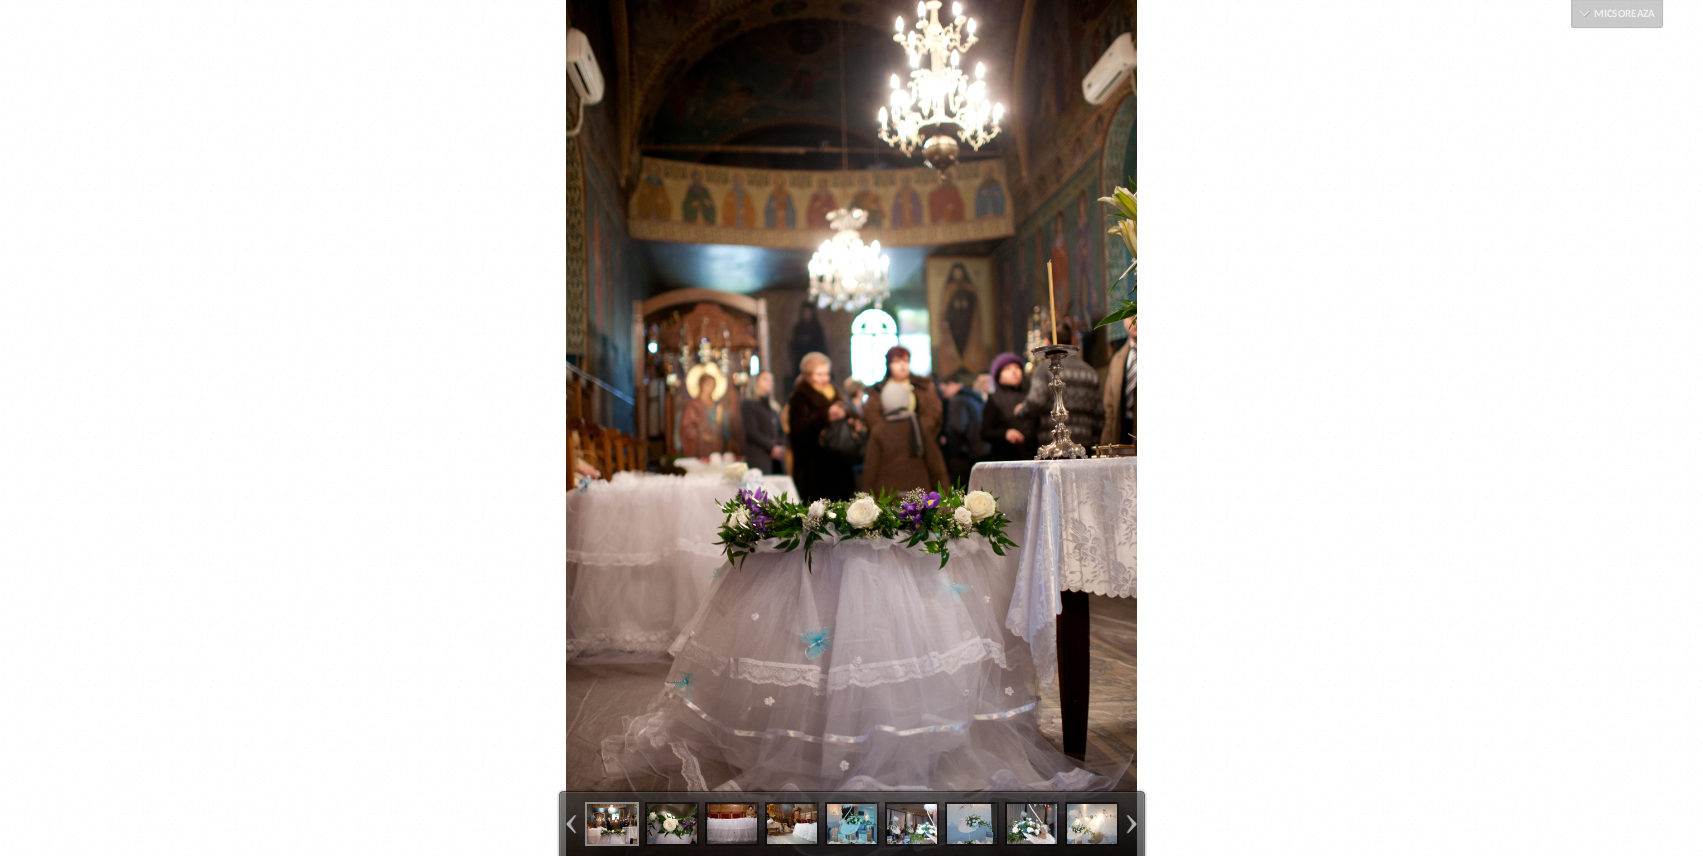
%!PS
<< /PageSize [1703 856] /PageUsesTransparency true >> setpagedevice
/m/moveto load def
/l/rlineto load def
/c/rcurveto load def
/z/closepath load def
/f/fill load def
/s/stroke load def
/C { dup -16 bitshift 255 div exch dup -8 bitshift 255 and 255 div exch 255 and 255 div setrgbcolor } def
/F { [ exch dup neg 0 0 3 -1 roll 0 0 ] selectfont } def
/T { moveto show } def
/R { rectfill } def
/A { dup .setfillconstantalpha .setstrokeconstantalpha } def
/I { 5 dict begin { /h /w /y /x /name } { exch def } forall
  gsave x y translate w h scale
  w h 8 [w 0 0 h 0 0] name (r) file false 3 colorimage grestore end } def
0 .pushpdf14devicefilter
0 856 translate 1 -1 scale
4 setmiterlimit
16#FFFFFF C
0 0 1703 856 R
(1.rgb) 0 0 1703 856 I
(2.rgb) 566 0 571 856 I
0.21 A
16#000000 C
1571 -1 m 92 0 l 0 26 l 0 1.5 -1.5 3 -3 3 c -86 0 l -1.5 0 -3 -1.5 -3 -3 c z f
0.07 A
1571.5 -.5 m 91 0 l 0 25.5 l 0 1.5 -1 2.5 -2.5 2.5 c -86 0 l -1.5 0 -2.5 -1 -2.5 -2.5 c z s
1 A
(3.rgb) 1580 10 10 8 I
/Carlito-Bold 11 F
16#EFEFEF C
(MICSOREAZA) 1594 17 T
(4.rgb) 556 789 592 67 I
(5.rgb) 566 815 11 19 I
0.4 A
16#000000 C
585 802 50 40 R
0.5 A
16#FFFFFF C
585 802 54 44 R
1 A
(6.rgb) 587 804 50 40 I
0.4 A
16#000000 C
645 802 50 40 R
645 802 54 44 R
1 A
(7.rgb) 647 804 50 40 I
0.4 A
705 802 50 40 R
705 802 54 44 R
1 A
(8.rgb) 707 804 50 40 I
0.4 A
765 802 50 40 R
765 802 54 44 R
1 A
(9.rgb) 767 804 50 40 I
0.4 A
825 802 50 40 R
825 802 54 44 R
1 A
(10.rgb) 827 804 50 40 I
0.4 A
885 802 50 40 R
885 802 54 44 R
1 A
(11.rgb) 887 804 50 40 I
0.4 A
945 802 50 40 R
945 802 54 44 R
1 A
(12.rgb) 947 804 50 40 I
0.4 A
1005 802 50 40 R
1005 802 54 44 R
1 A
(13.rgb) 1007 804 50 40 I
0.4 A
1065 802 50 40 R
1065 802 54 44 R
1 A
(14.rgb) 1067 804 50 40 I
(15.rgb) 1126 815 11 19 I
.poppdf14devicefilter showpage
